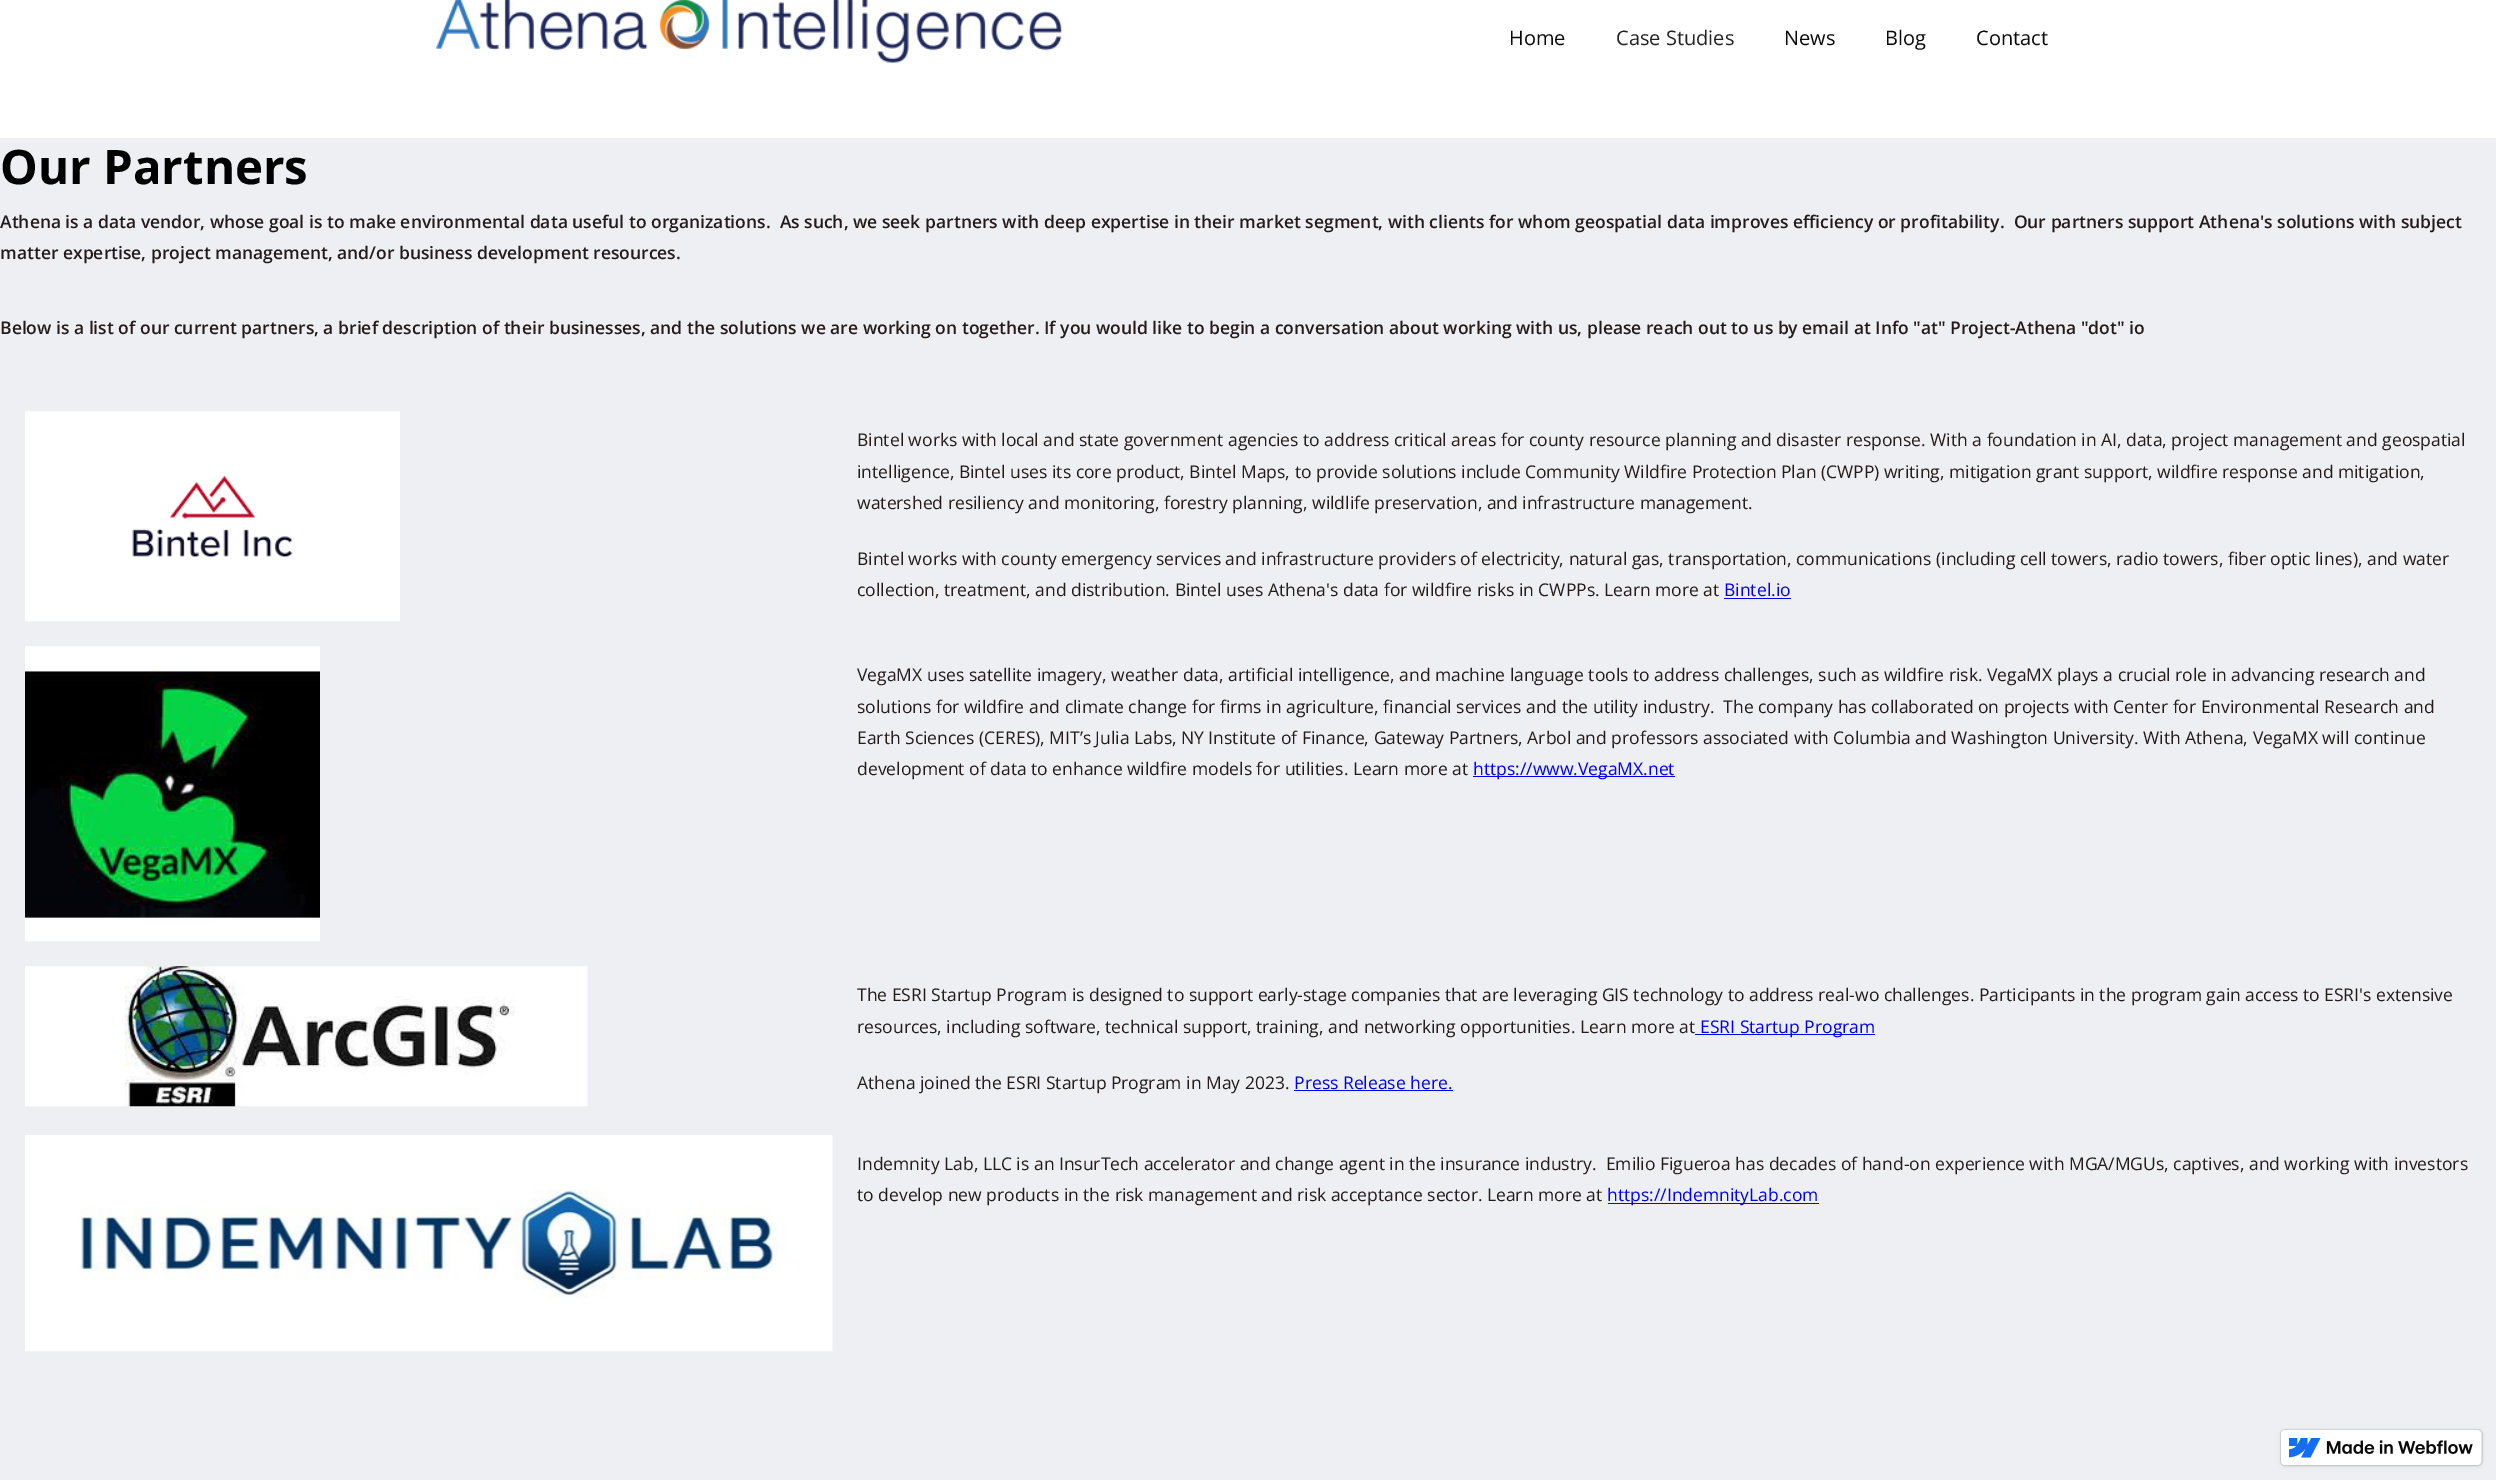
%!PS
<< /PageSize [2496 1480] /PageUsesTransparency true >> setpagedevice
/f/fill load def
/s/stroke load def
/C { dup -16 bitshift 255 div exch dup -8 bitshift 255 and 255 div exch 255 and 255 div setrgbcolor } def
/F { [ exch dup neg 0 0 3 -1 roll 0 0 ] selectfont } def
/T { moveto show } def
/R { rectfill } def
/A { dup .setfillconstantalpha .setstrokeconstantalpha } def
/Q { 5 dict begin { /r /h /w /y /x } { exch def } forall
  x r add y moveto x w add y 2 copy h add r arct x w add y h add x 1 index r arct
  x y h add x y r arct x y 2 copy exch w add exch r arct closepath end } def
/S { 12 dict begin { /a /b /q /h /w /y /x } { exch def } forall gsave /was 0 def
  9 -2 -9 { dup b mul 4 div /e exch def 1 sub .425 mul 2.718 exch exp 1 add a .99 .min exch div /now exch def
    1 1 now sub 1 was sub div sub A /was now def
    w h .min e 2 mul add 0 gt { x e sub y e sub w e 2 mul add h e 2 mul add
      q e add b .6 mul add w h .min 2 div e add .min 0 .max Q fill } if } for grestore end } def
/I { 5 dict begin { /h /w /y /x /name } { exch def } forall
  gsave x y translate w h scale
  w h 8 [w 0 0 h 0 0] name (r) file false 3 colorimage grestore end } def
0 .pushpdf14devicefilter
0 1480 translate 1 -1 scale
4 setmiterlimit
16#EDEFF2 C
0 0 2496 1480 R
16#FFFFFF C
0 0 2496 138 R
(1.rgb) 436 0 626 63 I
/OpenSans-Regular 20 F
16#0A0A0A C
(Home) 1509 45 T
16#222222 C
(Case Studies) 1616 45 T
16#0A0A0A C
(News) 1784 45 T
(Blog) 1885 45 T
(Contact) 1976 45 T
/OpenSans-Bold 47.5 F
16#000000 C
(Our Partners) 0 184 T
/OpenSans-SemiBold 17.5 F
16#241A19 C
(Athena is a data vendor, whose goal is to make environmental data useful to organizations.  As such, we seek partners with deep expertise in their market segment, with clients for whom geospatial data improves efficiency or profitability.  Our partners support Athena's solutions with subject) 0 228 T
(matter expertise, project management, and/or business development resources.) 0 259 T
(Below is a list of our current partners, a brief description of their businesses, and the solutions we are working on together. If you would like to begin a conversation about working with us, please reach out to us by email at Info "at" Project-Athena "dot" io) 0 334 T
(2.rgb) 25 411 375 211 I
/OpenSans-Regular 17.5 F
(Bintel works with local and state government agencies to address critical areas for county resource planning and disaster response. With a foundation in AI, data, project management and geospatial) 857 446 T
(intelligence, Bintel uses its core product, Bintel Maps, to provide solutions include Community Wildfire Protection Plan \(CWPP\) writing, mitigation grant support, wildfire response and mitigation,) 857 478 T
(watershed resiliency and monitoring, forestry planning, wildlife preservation, and infrastructure management.) 857 509 T
(Bintel works with county emergency services and infrastructure providers of electricity, natural gas, transportation, communications \(including cell towers, radio towers, fiber optic lines\), and water) 857 565 T
(collection, treatment, and distribution. Bintel uses Athena's data for wildfire risks in CWPPs. Learn more at) 857 596 T
16#0000EE C
(Bintel.io) 1724 596 T
1724 598 67 1 R
(3.rgb) 25 646 295 296 I
16#241A19 C
(VegaMX uses satellite imagery, weather data, artificial intelligence, and machine language tools to address challenges, such as wildfire risk. VegaMX plays a crucial role in advancing research and) 857 681 T
(solutions for wildfire and climate change for firms in agriculture, financial services and the utility industry.  The company has collaborated on projects with Center for Environmental Research and) 857 713 T
(Earth Sciences \(CERES\), MIT’s Julia Labs, NY Institute of Finance, Gateway Partners, Arbol and professors associated with Columbia and Washington University. With Athena, VegaMX will continue) 857 744 T
(development of data to enhance wildfire models for utilities. Learn more at) 857 775 T
16#0000EE C
1473 776 202 1 R
(https://www.VegaMX.net) 1473 775 T
(4.rgb) 25 966 563 141 I
16#241A19 C
(The ESRI Startup Program is designed to support early-stage companies that are leveraging GIS technology to address real-wo challenges. Participants in the program gain access to ESRI's extensive) 857 1001 T
(resources, including software, technical support, training, and networking opportunities. Learn more at) 857 1033 T
16#0000EE C
1695 1034 180 1 R
(ESRI Startup Program) 1700 1033 T
16#241A19 C
(Athena joined the ESRI Startup Program in May 2023.) 857 1089 T
16#0000EE C
(Press Release here.) 1294 1089 T
1294 1090 159 1 R
(5.rgb) 25 1135 808 217 I
16#241A19 C
(Indemnity Lab, LLC is an InsurTech accelerator and change agent in the insurance industry.  Emilio Figueroa has decades of hand-on experience with MGA/MGUs, captives, and working with investors) 857 1170 T
(to develop new products in the risk management and risk acceptance sector. Learn more at) 857 1201 T
16#0000EE C
1608 1203 211 1 R
(https://IndemnityLab.com) 1607 1201 T
16#000000 C
2281 1431 200 35 4 2 .1 S
0.1 A
2280.5 1429.5 202 36 4.5 Q s
1 A
16#FFFFFF C
2281 1430 200 35 4 Q f
(6.rgb) 2289 1438 32 20 I
(7.rgb) 2326 1440 147 14 I
.poppdf14devicefilter showpage
